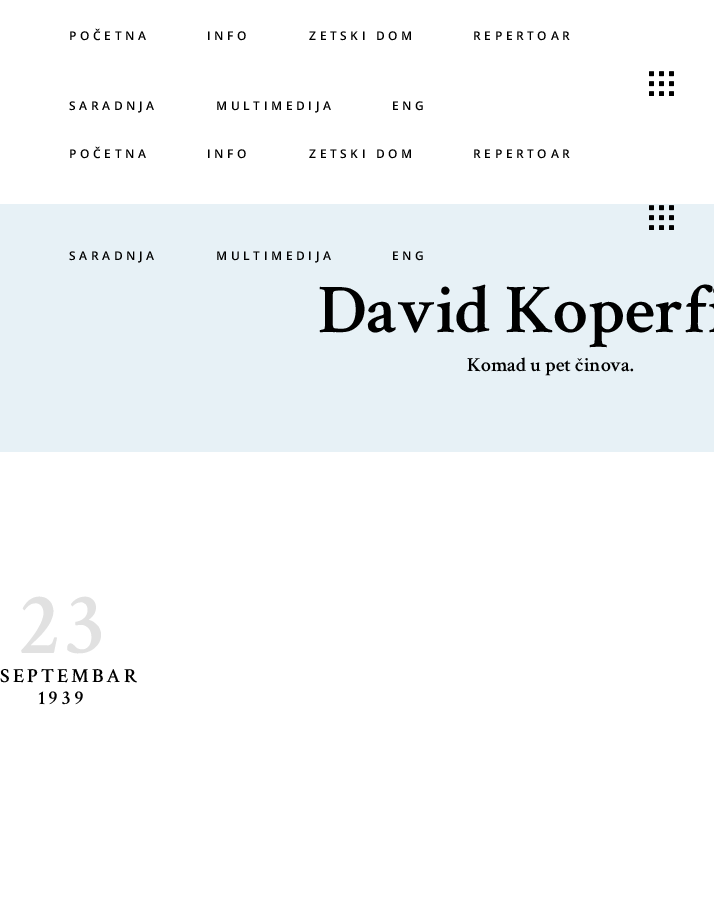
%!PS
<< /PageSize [714 924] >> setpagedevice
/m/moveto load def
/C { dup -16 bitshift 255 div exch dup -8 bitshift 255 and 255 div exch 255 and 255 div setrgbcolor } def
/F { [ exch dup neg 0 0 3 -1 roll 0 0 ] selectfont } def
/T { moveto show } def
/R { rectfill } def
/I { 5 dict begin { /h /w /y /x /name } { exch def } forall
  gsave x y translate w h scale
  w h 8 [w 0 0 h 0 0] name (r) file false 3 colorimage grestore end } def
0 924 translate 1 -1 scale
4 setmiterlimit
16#FFFFFF C
0 0 714 924 R
/OpenSans-SemiBold 12 F
16#000000 C
69 40 m 3.6 0 (POČETNA) ashow
207 40 m 3.6 0 (INFO) ashow
309 40 m 3.6 0 (ZETSKI DOM) ashow
473 40 m 3.6 0 (REPERTOAR) ashow
69 110 m 3.6 0 (SARADNJA) ashow
216 110 m 3.6 0 (MULTIMEDIJA) ashow
392 110 m 3.6 0 (ENG) ashow
(1.rgb) 649 71 25 25 I
69 158 m 3.6 0 (POČETNA) ashow
207 158 m 3.6 0 (INFO) ashow
309 158 m 3.6 0 (ZETSKI DOM) ashow
473 158 m 3.6 0 (REPERTOAR) ashow
16#E7F1F6 C
0 204 714 248 R
16#000000 C
69 260 m 3.6 0 (SARADNJA) ashow
216 260 m 3.6 0 (MULTIMEDIJA) ashow
392 260 m 3.6 0 (ENG) ashow
(2.rgb) 649 205 25 25 I
/CrimsonText-SemiBold 70 F
(David Koperfi) 318 332 T
/CrimsonText-SemiBold 20 F
(Komad u pet činova.) 467 371 T
/CrimsonText-SemiBold 90 F
16#E1E1E1 C
17 653 m 1 0 (23) ashow
/CrimsonText-SemiBold 20 F
16#000000 C
0 682 m 3 0 (SEPTEMBAR) ashow
38 704 m 3 0 (1939) ashow
showpage
